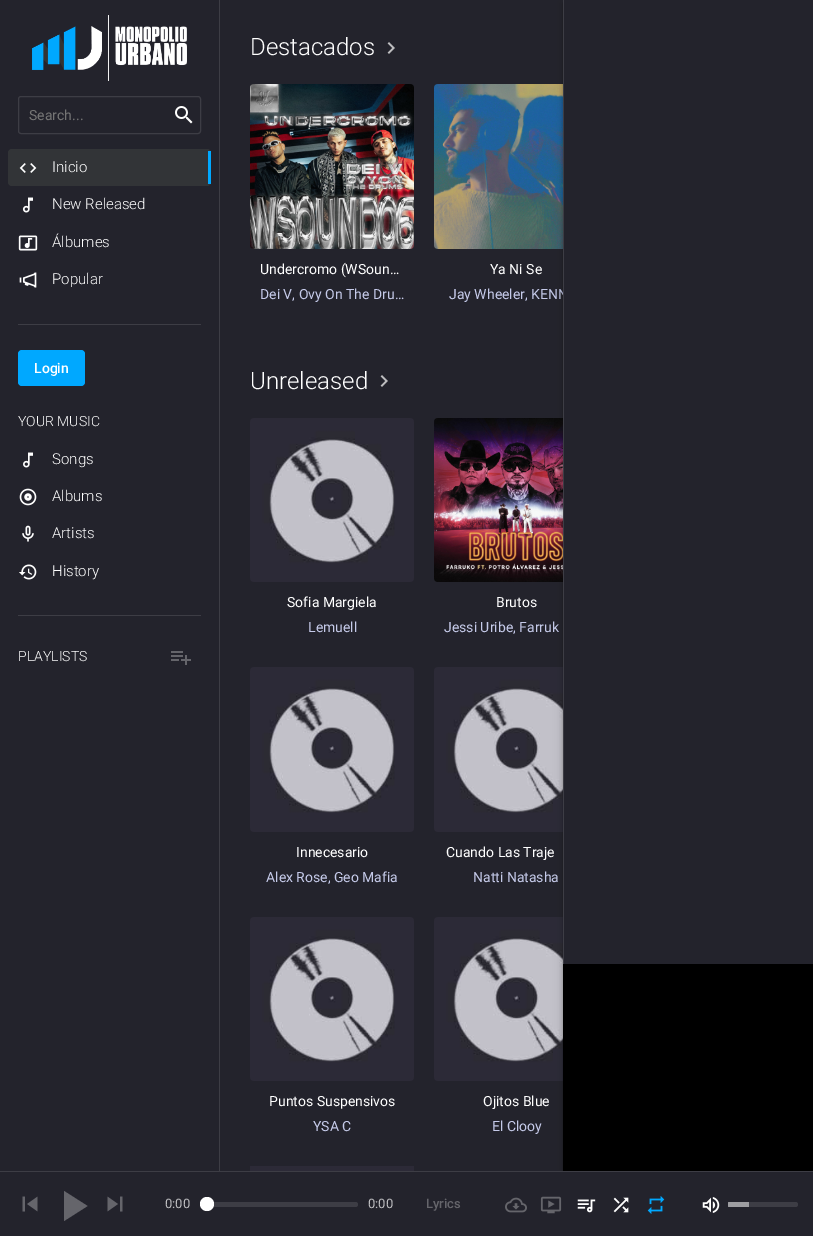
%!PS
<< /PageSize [813 1236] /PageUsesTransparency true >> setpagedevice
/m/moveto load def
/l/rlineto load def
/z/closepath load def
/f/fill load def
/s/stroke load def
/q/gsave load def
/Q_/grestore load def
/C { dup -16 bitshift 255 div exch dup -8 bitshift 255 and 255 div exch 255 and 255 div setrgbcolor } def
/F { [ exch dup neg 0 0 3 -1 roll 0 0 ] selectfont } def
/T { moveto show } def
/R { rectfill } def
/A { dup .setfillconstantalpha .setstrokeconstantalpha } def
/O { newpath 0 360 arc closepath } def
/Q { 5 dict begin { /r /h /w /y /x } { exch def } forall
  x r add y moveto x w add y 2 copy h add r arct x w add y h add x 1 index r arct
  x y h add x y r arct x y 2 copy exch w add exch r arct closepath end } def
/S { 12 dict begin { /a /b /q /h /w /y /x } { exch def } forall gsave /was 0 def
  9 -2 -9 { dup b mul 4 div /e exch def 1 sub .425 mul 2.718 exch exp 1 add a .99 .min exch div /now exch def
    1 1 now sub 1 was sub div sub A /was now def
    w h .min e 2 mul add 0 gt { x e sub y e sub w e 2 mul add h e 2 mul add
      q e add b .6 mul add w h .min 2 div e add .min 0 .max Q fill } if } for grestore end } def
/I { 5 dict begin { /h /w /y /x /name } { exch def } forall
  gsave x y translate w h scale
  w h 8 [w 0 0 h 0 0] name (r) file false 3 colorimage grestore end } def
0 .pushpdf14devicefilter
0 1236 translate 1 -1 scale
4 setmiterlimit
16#23232C C
0 0 813 1236 R
16#3D3D45 C
219 0 1 1171 R
(1.rgb) 32 15 155 66 I
18.5 96.5 182 37 2.5 Q s
/Roboto-Regular 14 F
16#757575 C
(Search...) 29 120 T
(2.rgb) 175 106 18 18 I
16#323437 C
8 149 203 37 4 Q f
16#00A8FF C
208 151 3 33 R
(3.rgb) 19 163 18 10 I
/Roboto-Light 15 F
16#FFFFFF C
(Inicio) 52 172 T
(4.rgb) 22 197 11 16 I
(New Released) 52 209 T
(5.rgb) 18 235 20 16 I
(Álbumes) 52 247 T
(6.rgb) 19 272 18 16 I
(Popular) 52 284 T
16#3D3D45 C
18 324 183 1 R
16#00A8FF C
18 350 67 36 4 Q f
/Roboto-Medium 14 F
16#FFFFFF C
(Login) 34 373 T
/Roboto-Light 14 F
(YOUR MUSIC) 18 426 T
(7.rgb) 23 452 10 16 I
/Roboto-Light 15 F
(Songs) 52 464 T
(8.rgb) 19 488 18 18 I
(Albums) 52 501 T
(9.rgb) 22 525 12 17 I
(Artists) 52 538 T
(10.rgb) 19 564 18 16 I
(History) 52 576 T
16#3D3D45 C
18 615 183 1 R
/Roboto-Light 14 F
16#FFFFFF C
(PLAYLISTS) 18 661 T
(11.rgb) 171 651 20 14 I
/Roboto-Light 24 F
(Destacados) 250 55 T
(12.rgb) 387 42 8 12 I
(13.rgb) 250 84 164 165 I
/Roboto-Regular 14 F
(Undercromo \(WSoun…) 260 274 T
16#C5CAE9 C
(Dei V, Ovy On The Dru…) 260 299 T
(14.rgb) 434 84 129 165 I
16#FFFFFF C
(Ya Ni Se) 490 274 T
16#C5CAE9 C
(Jay Wheeler, KENN) 449 299 T
/Roboto-Light 24 F
16#FFFFFF C
(Unreleased) 250 389 T
(12.rgb) 380 375 8 12 I
(15.rgb) 250 418 164 164 I
/Roboto-Regular 14 F
(Sofia Margiela) 287 607 T
16#C5CAE9 C
(Lemuell) 308 632 T
(16.rgb) 434 418 129 164 I
16#FFFFFF C
(Brutos) 496 607 T
16#C5CAE9 C
(Jessi Uribe, Farruk) 444 632 T
(17.rgb) 250 667 164 165 I
16#FFFFFF C
(Innecesario) 296 857 T
16#C5CAE9 C
(Alex Rose, Geo Mafia) 266 882 T
(18.rgb) 434 667 129 165 I
16#FFFFFF C
(Cuando Las Traje) 446 857 T
16#C5CAE9 C
(Natti Natasha) 473 882 T
(19.rgb) 250 917 164 164 I
16#FFFFFF C
(Puntos Suspensivos) 269 1106 T
16#C5CAE9 C
(YSA C) 313 1131 T
(20.rgb) 434 917 129 164 I
16#FFFFFF C
(Ojitos Blue) 483 1106 T
16#C5CAE9 C
(El Clooy) 492 1131 T
16#2C2A37 C
250 1166 164 5 R
16#3D3D45 C
0 1171 813 1 R
q
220 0 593 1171 rectclip
16#000000 C
563 1 250 1171 0 5 .12 S
563 4 250 1171 0 2.5 .14 S
564 3 248 1169 0 2 .2 S
Q_
16#23232C C
564 0 249 964 R
16#3D3D45 C
563 0 1 964 R
16#000000 C
563 964 250 207 R
(21.rgb) 22 1196 16 16 I
16#65656B C
64 1191 m 0 30 l 23.5 -15 l z f
(22.rgb) 107 1196 16 16 I
/Roboto-Regular 13 F
16#BDBDC0 C
(0:00) 165 1208 T
16#3D3D45 C
200 1202 158 5 2.5 Q f
16#FFFFFF C
207 1204 7 O f
0.12 A
207 1204 6.5 O s
1 A
16#BDBDC0 C
(0:00) 368 1208 T
/Roboto-Medium 13 F
16#65656B C
(Lyrics) 426 1208 T
(23.rgb) 505 1197 22 16 I
(24.rgb) 540 1196 22 18 I
(25.rgb) 577 1199 19 14 I
(26.rgb) 613 1197 16 16 I
(27.rgb) 647 1196 18 18 I
(28.rgb) 702 1197 18 16 I
16#3D3D45 C
728 1202 70 5 2.5 Q f
0.5 A
16#FFFFFF C
728 1202 21 5 R
.poppdf14devicefilter showpage
